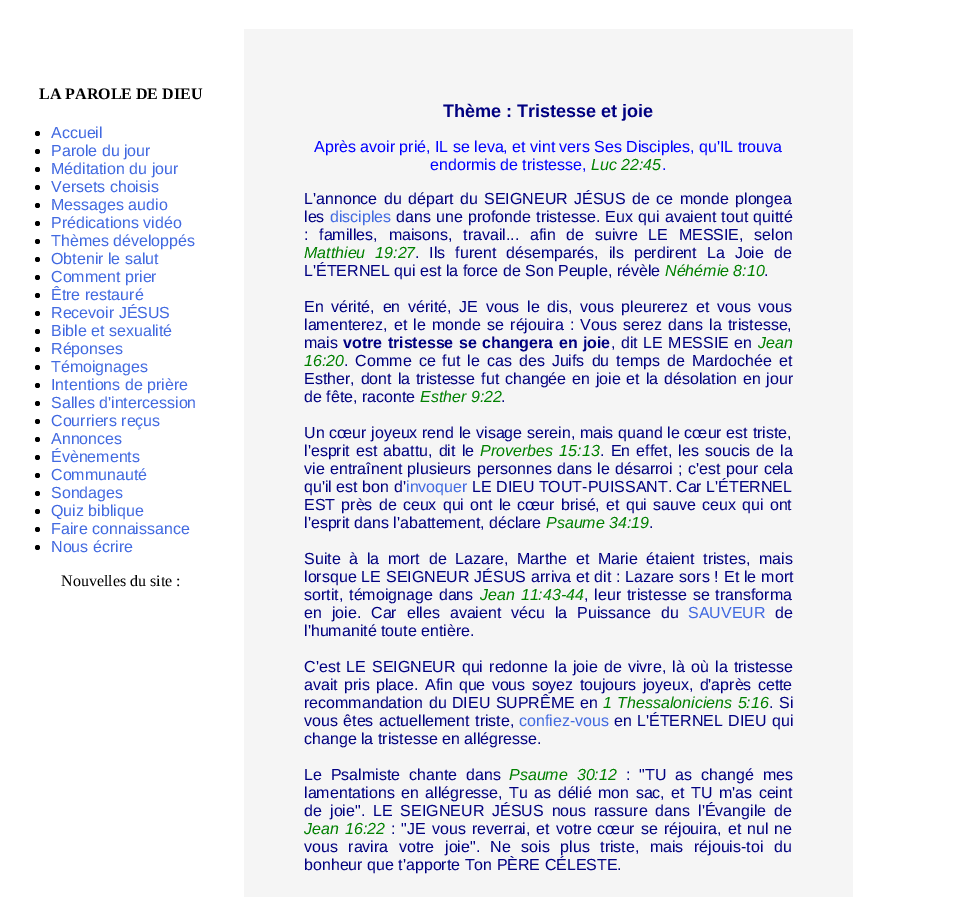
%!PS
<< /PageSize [974 897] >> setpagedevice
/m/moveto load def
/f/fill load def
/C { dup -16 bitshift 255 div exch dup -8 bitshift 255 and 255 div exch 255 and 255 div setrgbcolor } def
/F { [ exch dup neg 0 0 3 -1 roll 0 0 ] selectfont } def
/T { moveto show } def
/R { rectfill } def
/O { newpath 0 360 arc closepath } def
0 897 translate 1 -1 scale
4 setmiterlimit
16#FFFFFF C
0 0 974 897 R
/LiberationSerif-Bold 16 F
16#000000 C
(LA PAROLE DE DIEU) 39 99 T
37.5 133.5 2.5 O f
/LiberationSans-Regular 16 F
16#4169E1 C
(Accueil) 51 138 T
16#000000 C
37.5 151.5 2.5 O f
16#4169E1 C
(Parole du jour) 51 156 T
16#000000 C
37.5 169.5 2.5 O f
16#4169E1 C
(Méditation du jour) 51 174 T
16#000000 C
37.5 187.5 2.5 O f
16#4169E1 C
(Versets choisis) 51 192 T
16#000000 C
37.5 205.5 2.5 O f
16#4169E1 C
(Messages audio) 51 210 T
16#000000 C
37.5 223.5 2.5 O f
16#4169E1 C
(Prédications vidéo) 51 228 T
16#000000 C
37.5 241.5 2.5 O f
16#4169E1 C
(Thèmes développés) 51 246 T
16#000000 C
37.5 259.5 2.5 O f
16#4169E1 C
(Obtenir le salut) 51 264 T
16#000000 C
37.5 277.5 2.5 O f
16#4169E1 C
(Comment prier) 51 282 T
16#000000 C
37.5 295.5 2.5 O f
16#4169E1 C
(Être restauré) 51 300 T
16#000000 C
37.5 313.5 2.5 O f
16#4169E1 C
(Recevoir JÉSUS) 51 318 T
16#000000 C
37.5 331.5 2.5 O f
16#4169E1 C
(Bible et sexualité) 51 336 T
16#000000 C
37.5 349.5 2.5 O f
16#4169E1 C
(Réponses) 51 354 T
16#000000 C
37.5 367.5 2.5 O f
16#4169E1 C
(Témoignages) 51 372 T
16#000000 C
37.5 385.5 2.5 O f
16#4169E1 C
(Intentions de prière) 51 390 T
16#000000 C
37.5 403.5 2.5 O f
16#4169E1 C
(Salles d'intercession) 51 408 T
16#000000 C
37.5 421.5 2.5 O f
16#4169E1 C
(Courriers reçus) 51 426 T
16#000000 C
37.5 439.5 2.5 O f
16#4169E1 C
(Annonces) 51 444 T
16#000000 C
37.5 457.5 2.5 O f
16#4169E1 C
(Évènements) 51 462 T
16#000000 C
37.5 475.5 2.5 O f
16#4169E1 C
(Communauté) 51 480 T
16#000000 C
37.5 493.5 2.5 O f
16#4169E1 C
(Sondages) 51 498 T
16#000000 C
37.5 511.5 2.5 O f
16#4169E1 C
(Quiz biblique) 51 516 T
16#000000 C
37.5 529.5 2.5 O f
16#4169E1 C
(Faire connaissance) 51 534 T
16#000000 C
37.5 547.5 2.5 O f
16#4169E1 C
(Nous écrire) 51 552 T
/LiberationSerif-Regular 16 F
16#000000 C
(Nouvelles du site :) 61 586 T
16#F5F5F5 C
244 29 609 868 R
/LiberationSans-Bold 18 F
16#000080 C
(Thème : Tristesse et joie) 443 117 T
/LiberationSans-Regular 16 F
16#0000FF C
(Après avoir prié, IL se leva, et vint vers Ses Disciples, qu'IL trouva) 314 152 T
(endormis de tristesse,) 430 170 T
/LiberationSans-Italic 16 F
16#008000 C
(Luc 22:45) 591 170 T
/LiberationSans-Regular 16 F
16#0000FF C
(.) 662 170 T
16#000080 C
304 204 m 2 0 32 (L'annonce du départ du SEIGNEUR JÉSUS de ce monde plongea) widthshow
(les) 304 222 T
16#4169E1 C
(disciples) 330 222 T
16#000080 C
396 222 m .75 0 32 (dans une profonde tristesse. Eux qui avaient tout quitté) widthshow
304 240 m 6.25 0 32 (: familles, maisons, travail... afin de suivre LE MESSIE, selon) widthshow
/LiberationSans-Italic 16 F
16#008000 C
304 258 m 5.5 0 32 (Matthieu 19:27) widthshow
/LiberationSans-Regular 16 F
16#000080 C
415 258 m 5.5 0 32 (. Ils furent désemparés, ils perdirent La Joie de) widthshow
(L'ÉTERNEL qui est la force de Son Peuple, révèle) 304 276 T
/LiberationSans-Italic 16 F
16#008000 C
(Néhémie 8:10) 665 276 T
/LiberationSans-Regular 16 F
16#000080 C
(.) 764 276 T
304 312 m 3.25 0 32 (En vérité, en vérité, JE vous le dis, vous pleurerez et vous vous) widthshow
304 330 m 1.75 0 32 (lamenterez, et le monde se réjouira : Vous serez dans la tristesse,) widthshow
(mais) 304 348 T
/LiberationSans-Bold 16 F
343 348 m 1 0 32 (votre tristesse se changera en joie) widthshow
/LiberationSans-Regular 16 F
611 348 m 1 0 32 (, dit LE MESSIE en) widthshow
/LiberationSans-Italic 16 F
16#008000 C
(Jean) 758 348 T
(16:20) 304 366 T
/LiberationSans-Regular 16 F
16#000080 C
344 366 m 2.6 0 32 (. Comme ce fut le cas des Juifs du temps de Mardochée et) widthshow
304 384 m 1.4 0 32 (Esther, dont la tristesse fut changée en joie et la désolation en jour) widthshow
(de fête, raconte) 304 402 T
/LiberationSans-Italic 16 F
16#008000 C
(Esther 9:22) 420 402 T
/LiberationSans-Regular 16 F
16#000080 C
(.) 501 402 T
304 438 m .25 0 32 (Un cœur joyeux rend le visage serein, mais quand le cœur est triste,) widthshow
304 456 m 1.75 0 32 (l'esprit est abattu, dit le) widthshow
/LiberationSans-Italic 16 F
16#008000 C
480 456 m 2 0 32 (Proverbes 15:13) widthshow
/LiberationSans-Regular 16 F
16#000080 C
600 456 m 1.75 0 32 (. En effet, les soucis de la) widthshow
304 474 m 1 0 32 (vie entraînent plusieurs personnes dans le désarroi ; c'est pour cela) widthshow
(qu'il est bon) 304 492 T
(d') 394 492 T
16#4169E1 C
(invoquer) 406 492 T
16#000080 C
(LE DIEU TOUT-PUISSANT.) 472 492 T
(Car L'ÉTERNEL) 676 492 T
304 510 m 1.75 0 32 (EST près de ceux qui ont le cœur brisé, et qui sauve ceux qui ont) widthshow
(l'esprit dans l'abattement, déclare) 304 528 T
/LiberationSans-Italic 16 F
16#008000 C
(Psaume 34:19) 546 528 T
/LiberationSans-Regular 16 F
16#000080 C
(.) 649 528 T
304 564 m 4.25 0 32 (Suite à la mort de Lazare, Marthe et Marie étaient tristes, mais) widthshow
304 582 m .5 0 32 (lorsque LE SEIGNEUR JÉSUS arriva et dit : Lazare sors ! Et le mort) widthshow
304 600 m 1.5 0 32 (sortit, témoignage dans) widthshow
/LiberationSans-Italic 16 F
16#008000 C
480 600 m 1.5 0 32 (Jean 11:43-44) widthshow
/LiberationSans-Regular 16 F
16#000080 C
584 600 m 1.5 0 32 (, leur tristesse se transforma) widthshow
304 618 m 5.5 0 32 (en joie. Car elles avaient vécu la Puissance du) widthshow
16#4169E1 C
(SAUVEUR) 688 618 T
16#000080 C
(de) 775 618 T
(l'humanité toute entière.) 304 636 T
304 672 m 1.75 0 32 (C'est LE SEIGNEUR qui redonne la joie de vivre, là où la tristesse) widthshow
304 690 m 1.75 0 32 (avait pris place. Afin que vous soyez toujours joyeux, d'après cette) widthshow
304 708 m 1 0 32 (recommandation du DIEU SUPRÊME en) widthshow
/LiberationSans-Italic 16 F
16#008000 C
603 708 m 1 0 32 (1 Thessaloniciens 5:16) widthshow
/LiberationSans-Regular 16 F
16#000080 C
769 708 m 1 0 32 (. Si) widthshow
304 726 m 1 0 32 (vous êtes actuellement triste,) widthshow
16#4169E1 C
(confiez-vous) 519 726 T
16#000080 C
(en) 614 726 T
637 726 m 1 0 32 (L'ÉTERNEL DIEU qui) widthshow
(change la tristesse en allégresse.) 304 744 T
304 780 m 4.5 0 32 (Le Psalmiste chante dans) widthshow
/LiberationSans-Italic 16 F
16#008000 C
509 780 m 4.5 0 32 (Psaume 30:12) widthshow
/LiberationSans-Regular 16 F
16#000080 C
626 780 m 4.5 0 32 (: "TU as changé mes) widthshow
304 798 m 2 0 32 (lamentations en allégresse, Tu as délié mon sac, et TU m'as ceint) widthshow
(de) 304 816 T
330 816 m 3.5 0 32 (joie". LE SEIGNEUR JÉSUS nous rassure dans l'Évangile de) widthshow
/LiberationSans-Italic 16 F
16#008000 C
304 834 m 2 0 32 (Jean 16:22) widthshow
/LiberationSans-Regular 16 F
16#000080 C
391 834 m 1.6 0 32 (: "JE vous reverrai, et votre cœur se réjouira, et nul ne) widthshow
304 852 m 6 0 32 (vous ravira votre) widthshow
445 852 m 6 0 32 (joie". Ne sois plus triste, mais réjouis-toi du) widthshow
(bonheur que t'apporte Ton PÈRE CÉLESTE.) 304 870 T
showpage
